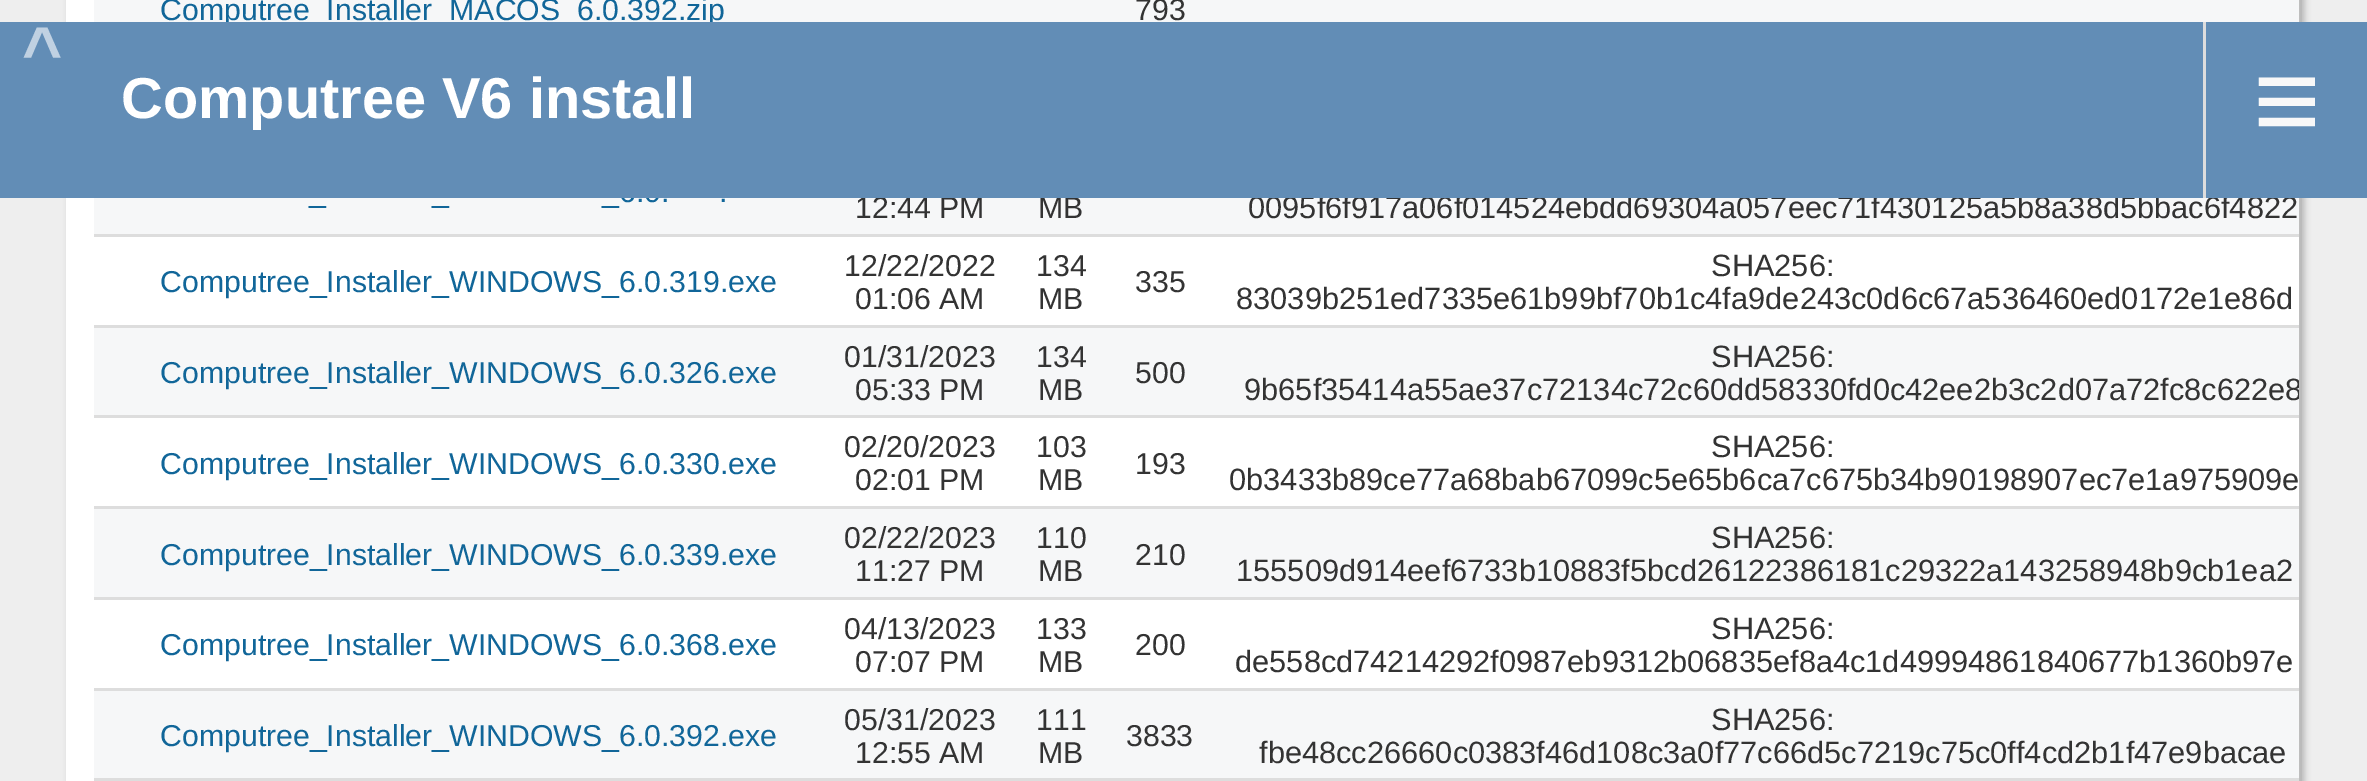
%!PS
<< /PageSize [2367 781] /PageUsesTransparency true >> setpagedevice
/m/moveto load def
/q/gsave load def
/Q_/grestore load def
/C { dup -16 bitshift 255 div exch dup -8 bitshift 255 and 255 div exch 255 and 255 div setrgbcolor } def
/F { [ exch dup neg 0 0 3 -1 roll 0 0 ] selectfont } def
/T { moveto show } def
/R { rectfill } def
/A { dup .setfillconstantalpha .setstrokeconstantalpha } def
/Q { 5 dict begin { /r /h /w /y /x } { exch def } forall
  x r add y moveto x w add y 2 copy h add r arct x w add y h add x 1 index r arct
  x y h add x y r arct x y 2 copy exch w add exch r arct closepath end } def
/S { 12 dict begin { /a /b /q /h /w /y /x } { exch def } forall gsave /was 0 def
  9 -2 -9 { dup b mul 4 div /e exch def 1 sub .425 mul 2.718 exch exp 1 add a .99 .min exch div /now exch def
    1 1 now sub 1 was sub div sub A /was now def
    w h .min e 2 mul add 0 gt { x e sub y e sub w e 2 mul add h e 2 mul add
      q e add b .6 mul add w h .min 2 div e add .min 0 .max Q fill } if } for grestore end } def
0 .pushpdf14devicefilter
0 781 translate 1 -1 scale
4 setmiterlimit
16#EEEEEE C
0 0 2367 781 R
16#BBBBBB C
69 -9 2236 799 0 3 1 S
16#FFFFFF C
66 0 2233 781 R
16#BBBBBB C
2300 0 2 781 R
16#F6F7F8 C
94 0 2205 22 R
/LiberationSans-Regular 30.25 F
16#116699 C
(Computree_Installer_MACOS_6.0.392.zip) 160 20 T
16#333333 C
(793) 1135 20 T
16#F6F7F8 C
94 198 2205 36 R
16#116699 C
(_6.0.) 602 202 T
(.) 719 202 T
(_) 309 202 T
(_) 432 202 T
16#333333 C
(12:44 PM) 855 218 T
(MB) 1038 218 T
16#DDDDDD C
94 234 2205 3 R
/LiberationSans-Regular 30.8 F
16#333333 C
(0095f6f917a06f014524ebdd69304a057eec71f430125a5b8a38d5bbac6f4822) 1248 218 T
/LiberationSans-Regular 30.25 F
16#116699 C
(Computree_Installer_WINDOWS_6.0.319.exe) 160 292 T
16#333333 C
(12/22/2022) 844 276 T
(01:06 AM) 855 309 T
(134) 1036 276 T
(MB) 1038 309 T
(335) 1135 292 T
16#DDDDDD C
94 325 2205 3 R
/LiberationSans-Regular 30.8 F
16#333333 C
(SHA256:) 1711 276 T
(83039b251ed7335e61b99bf70b1c4fa9de243c0d6c67a536460ed0172e1e86d) 1236 309 T
16#F6F7F8 C
94 328 2205 87 R
/LiberationSans-Regular 30.25 F
16#116699 C
(Computree_Installer_WINDOWS_6.0.326.exe) 160 383 T
16#333333 C
(01/31/2023) 844 367 T
(05:33 PM) 855 400 T
(134) 1036 367 T
(MB) 1038 400 T
(500) 1135 383 T
16#DDDDDD C
94 415 2205 3 R
/LiberationSans-Regular 30.8 F
16#333333 C
(SHA256:) 1711 367 T
q
66 0 2233 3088 rectclip
(9b65f35414a55ae37c72134c72c60dd58330fd0c42ee2b3c2d07a72fc8c622e8) 1244 400 T
Q_
/LiberationSans-Regular 30.25 F
16#116699 C
(Computree_Installer_WINDOWS_6.0.330.exe) 160 474 T
16#333333 C
(02/20/2023) 844 457 T
(02:01 PM) 855 490 T
(103) 1036 457 T
(MB) 1038 490 T
(193) 1135 474 T
16#DDDDDD C
94 506 2205 3 R
/LiberationSans-Regular 30.8 F
16#333333 C
(SHA256:) 1711 457 T
(0b3433b89ce77a68bab67099c5e65b6ca7c675b34b90198907ec7e1a975909e) 1229 490 T
16#F6F7F8 C
94 509 2205 88 R
/LiberationSans-Regular 30.25 F
16#116699 C
(Computree_Installer_WINDOWS_6.0.339.exe) 160 565 T
16#333333 C
(02/22/2023) 844 548 T
(11:27 PM) 855 581 T
(110) 1036 548 T
(MB) 1038 581 T
(210) 1135 565 T
16#DDDDDD C
94 597 2205 3 R
/LiberationSans-Regular 30.8 F
16#333333 C
(SHA256:) 1711 548 T
(155509d914eef6733b10883f5bcd26122386181c29322a143258948b9cb1ea2) 1236 581 T
/LiberationSans-Regular 30.25 F
16#116699 C
(Computree_Installer_WINDOWS_6.0.368.exe) 160 655 T
16#333333 C
(04/13/2023) 844 639 T
(07:07 PM) 855 672 T
(133) 1036 639 T
(MB) 1038 672 T
(200) 1135 655 T
16#DDDDDD C
94 688 2205 3 R
/LiberationSans-Regular 30.8 F
16#333333 C
(SHA256:) 1711 639 T
(de558cd74214292f0987eb9312b06835ef8a4c1d49994861840677b1360b97e) 1235 672 T
16#F6F7F8 C
94 691 2205 87 R
/LiberationSans-Regular 30.25 F
16#116699 C
(Computree_Installer_WINDOWS_6.0.392.exe) 160 746 T
16#333333 C
(05/31/2023) 844 730 T
(12:55 AM) 855 763 T
(111) 1036 730 T
(MB) 1038 763 T
(3833) 1126 746 T
16#DDDDDD C
94 778 2205 3 R
/LiberationSans-Regular 30.8 F
16#333333 C
(SHA256:) 1711 730 T
(fbe48cc26660c0383f46d108c3a0f77c66d5c7219c75c0ff4cd2b1f47e9bacae) 1259 763 T
16#628DB6 C
0 22 2367 176 R
/LiberationSans-Bold 69 F
16#C0D1E2 C
22 75 m 10 0 (^) ashow
/LiberationSans-Bold 57.75 F
16#FFFFFF C
(Computree V6 install) 121 118 T
16#DDDDDD C
2203 22 3 176 R
/LiberationSans-Regular 116 F
16#F8F8F8 C
(≡) 2253 140 T
.poppdf14devicefilter showpage
